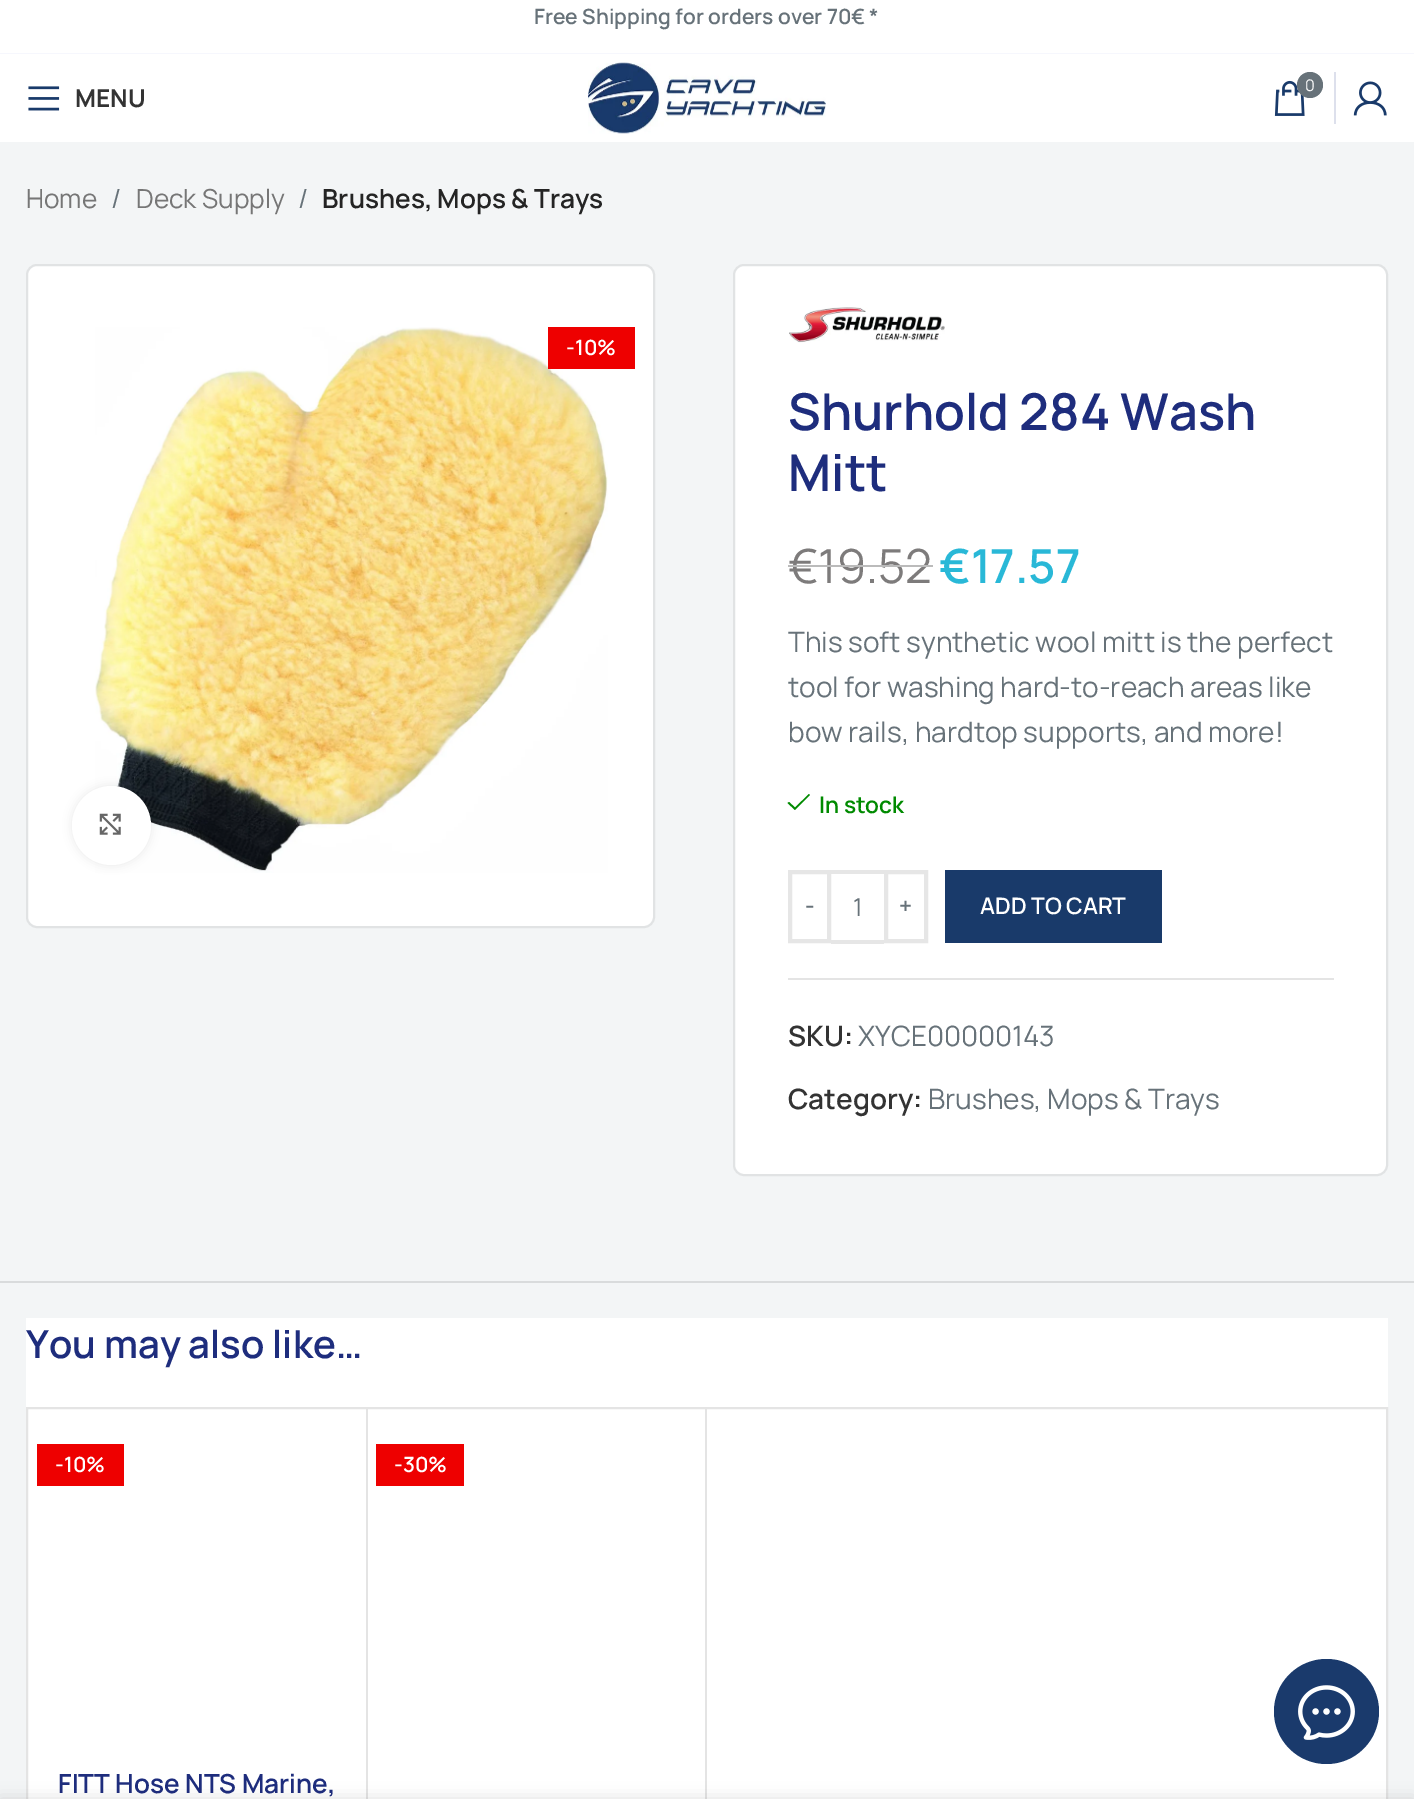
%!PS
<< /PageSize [1414 1799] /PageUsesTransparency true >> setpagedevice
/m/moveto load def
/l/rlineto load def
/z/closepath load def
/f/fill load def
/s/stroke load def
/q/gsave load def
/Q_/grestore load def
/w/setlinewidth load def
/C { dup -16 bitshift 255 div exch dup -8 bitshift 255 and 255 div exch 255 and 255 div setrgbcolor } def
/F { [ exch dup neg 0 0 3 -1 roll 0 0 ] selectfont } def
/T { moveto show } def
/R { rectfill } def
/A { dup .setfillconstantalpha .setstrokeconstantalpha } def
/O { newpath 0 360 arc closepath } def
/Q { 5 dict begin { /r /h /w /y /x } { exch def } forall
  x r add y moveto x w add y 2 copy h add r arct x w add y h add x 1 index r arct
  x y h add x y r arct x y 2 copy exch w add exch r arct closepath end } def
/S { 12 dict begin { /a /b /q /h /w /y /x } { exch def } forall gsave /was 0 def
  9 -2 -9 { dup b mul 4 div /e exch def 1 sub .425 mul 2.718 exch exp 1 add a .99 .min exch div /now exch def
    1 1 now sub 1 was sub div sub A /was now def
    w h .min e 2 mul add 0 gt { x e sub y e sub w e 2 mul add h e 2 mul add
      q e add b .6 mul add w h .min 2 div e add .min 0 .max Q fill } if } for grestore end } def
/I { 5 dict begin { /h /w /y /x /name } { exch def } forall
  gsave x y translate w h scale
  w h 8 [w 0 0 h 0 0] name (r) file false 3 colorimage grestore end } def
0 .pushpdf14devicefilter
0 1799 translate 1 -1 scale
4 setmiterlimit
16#FFFFFF C
0 0 1414 1799 R
16#F6F7FD C
0 53 1414 1 R
/Manrope-SemiBold 21 F
16#677279 C
(Free Shipping for orders over 70€ *) 534 24 T
(1.rgb) 588 62 238 72 I
(2.rgb) 1274 80 31 36 I
1310 85 13 O f
/Manrope-Regular 16 F
16#FFFFFF C
(0) 1305 91 T
16#DDE0EC C
1334 72 2 52 R
(3.rgb) 1353 81 34 35 I
(4.rgb) 28 86 32 25 I
/Manrope-Bold 24.5 F
16#333333 C
(MENU) 75 107 T
16#F3F5F6 C
0 142 1414 1657 R
/Manrope-Regular 26.25 F
16#767676 C
(Home) 26 208 T
16#677279 C
(/) 111 208 T
16#767676 C
(Deck Supply) 136 208 T
16#677279 C
(/) 298 208 T
/Manrope-SemiBold 26.25 F
16#242424 C
(Brushes, Mops & Trays) 322 208 T
16#FFFFFF C
27 265 627 662 10 Q q f Q_
16#E1E3E4 C
2 w
s
(5.rgb) 95 327 513 546 I
16#EE0000 C
548 327 87 42 R
/Manrope-SemiBold 21 F
16#FFFFFF C
(-10%) 566 355 T
16#000000 C
72 786 79 79 39.5 4.5 .08 S
16#FFFFFF C
111.5 825.5 39.5 O f
(6.rgb) 99 813 22 22 I
734 265 653 910 10 Q q f Q_
16#E1E3E4 C
s
(7.rgb) 789 307 156 36 I
/Manrope-SemiBold 50.75 F
16#1E2D7D C
(Shurhold 284 Wash) 788 430 T
(Mitt) 788 491 T
/Manrope-Regular 47 F
16#7D7B7B C
(€19.52) 788 583 T
16#BBBBBB C
788 565 145 2 R
/Manrope-SemiBold 47 F
16#29B8D7 C
(€17.57) 939 583 T
/Manrope-Regular 28 F
16#677279 C
(This soft synthetic wool mitt is the perfect) 788 652 T
(tool for washing hard-to-reach areas like) 788 697 T
(bow rails, hardtop supports, and more!) 788 742 T
16#008A00 C
810 795 m -1 -1 l -14 13.5 l -6 -5.5 l -1.5 1 l 7.5 7 l z f
/Manrope-SemiBold 22.75 F
(In stock) 819 813 T
16#E6E6E6 C
4 w
790 872 39 69 rectstroke
16#677279 C
(-) 805 914 T
16#E6E6E6 C
831 870 53 4 R
831 940 53 4 R
/Manrope-Regular 24.5 F
16#677279 C
(1) 853 916 T
16#E6E6E6 C
886 872 40 69 rectstroke
/Manrope-SemiBold 22.75 F
16#677279 C
(+) 899 914 T
16#193A6A C
945 870 217 73 R
16#FFFFFF C
(ADD TO CART) 980 914 T
16#E4E4E4 C
788 978 546 2 R
/Manrope-SemiBold 28 F
16#333333 C
(SKU:) 788 1046 T
/Manrope-Regular 28 F
16#677279 C
(XYCE00000143) 858 1046 T
/Manrope-SemiBold 28 F
16#333333 C
(Category:) 788 1109 T
/Manrope-Regular 28 F
16#677279 C
(Brushes, Mops & Trays) 928 1109 T
16#D9DBDC C
0 1281 1414 2 R
16#FFFFFF C
26 1318 1362 481 R
/Manrope-SemiBold 38.5 F
16#1E2D7D C
(You may also like…) 26 1358 T
16#E4E4E4 C
2 w
27 1408 1360 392 rectstroke
366 1409 2 390 R
16#EE0000 C
37 1444 87 42 R
/Manrope-SemiBold 21 F
16#FFFFFF C
(-10%) 55 1472 T
/Manrope-SemiBold 26.25 F
16#1E2D7D C
(FITT Hose NTS Marine,) 58 1793 T
16#E4E4E4 C
705 1409 2 390 R
16#EE0000 C
376 1444 88 42 R
/Manrope-SemiBold 21 F
16#FFFFFF C
(-30%) 394 1472 T
16#1A3A6C C
1326.5 1711.5 52.5 O f
(8.rgb) 1298 1685 57 55 I
16#000000 C
0 1799 1414 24 0 8 .12 S
.poppdf14devicefilter showpage
